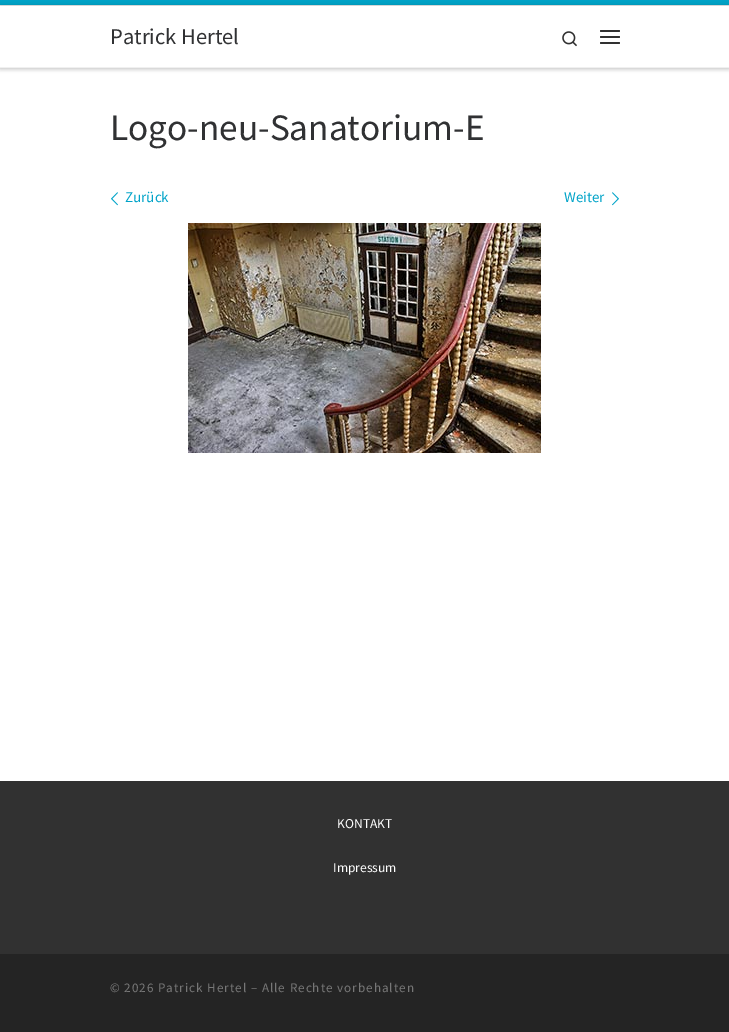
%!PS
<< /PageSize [729 1032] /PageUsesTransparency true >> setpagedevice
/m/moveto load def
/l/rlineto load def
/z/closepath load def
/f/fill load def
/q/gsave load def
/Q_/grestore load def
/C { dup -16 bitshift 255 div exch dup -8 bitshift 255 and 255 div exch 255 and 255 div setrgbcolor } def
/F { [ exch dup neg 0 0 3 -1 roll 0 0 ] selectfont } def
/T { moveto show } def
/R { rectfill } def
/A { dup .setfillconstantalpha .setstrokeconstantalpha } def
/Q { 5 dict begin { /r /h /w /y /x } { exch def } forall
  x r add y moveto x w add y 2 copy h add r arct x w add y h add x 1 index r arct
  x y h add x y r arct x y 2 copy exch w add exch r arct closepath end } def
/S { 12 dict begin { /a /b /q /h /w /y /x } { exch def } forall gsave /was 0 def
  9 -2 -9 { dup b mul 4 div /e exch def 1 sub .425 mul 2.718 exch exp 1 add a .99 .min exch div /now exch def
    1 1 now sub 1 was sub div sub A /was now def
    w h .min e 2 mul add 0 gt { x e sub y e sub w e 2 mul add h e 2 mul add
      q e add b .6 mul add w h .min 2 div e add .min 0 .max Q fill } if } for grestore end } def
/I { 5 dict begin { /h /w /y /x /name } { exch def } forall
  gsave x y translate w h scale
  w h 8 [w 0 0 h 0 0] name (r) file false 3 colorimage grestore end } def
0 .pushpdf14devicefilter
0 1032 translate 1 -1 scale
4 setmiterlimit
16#FFFFFF C
0 0 729 1032 R
q
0 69 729 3 rectclip
16#666666 C
0 2 729 69 0 1 .08 S
Q_
16#00A3C8 C
0 0 729 5 R
16#ECECEC C
0 5 729 1 R
16#EFEFEF C
0 68 729 1 R
q
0 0 m 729 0 l 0 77 l -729 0 l z 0 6 m 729 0 l 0 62 l -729 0 l z eoclip newpath
16#000000 C
0 6 729 62 0 2.5 .2 S
Q_
/SourceSansPro-Regular 22.5 F
16#303133 C
(Patrick Hertel) 110 44 T
(1.rgb) 562 31 15 16 I
16#313131 C
600 30 20 2 1 Q f
600 36 20 2 1 Q f
600 42 20 2 1 Q f
16#F0F0F0 C
0 67 729 1 R
/SourceSansPro-Regular 37.25 F
16#303133 C
(Logo-neu-Sanatorium-E) 110 140 T
(2.rgb) 111 192 7 14 I
/SourceSansPro-Regular 15 F
16#00A3C8 C
(Zurück) 125 202 T
(Weiter) 564 202 T
(3.rgb) 612 192 7 14 I
(4.rgb) 188 223 353 230 I
16#313131 C
0 781 729 173 R
/SourceSansPro-Regular 13.5 F
16#FFFFFF C
(KONTAKT) 337 828 T
(Impressum) 333 872 T
16#242424 C
0 954 729 78 R
/SourceSansPro-Regular 13.1 F
16#777777 C
110 992 m 1 0 (© 2026 Patrick Hertel – Alle Rechte vorbehalten) ashow
.poppdf14devicefilter showpage
